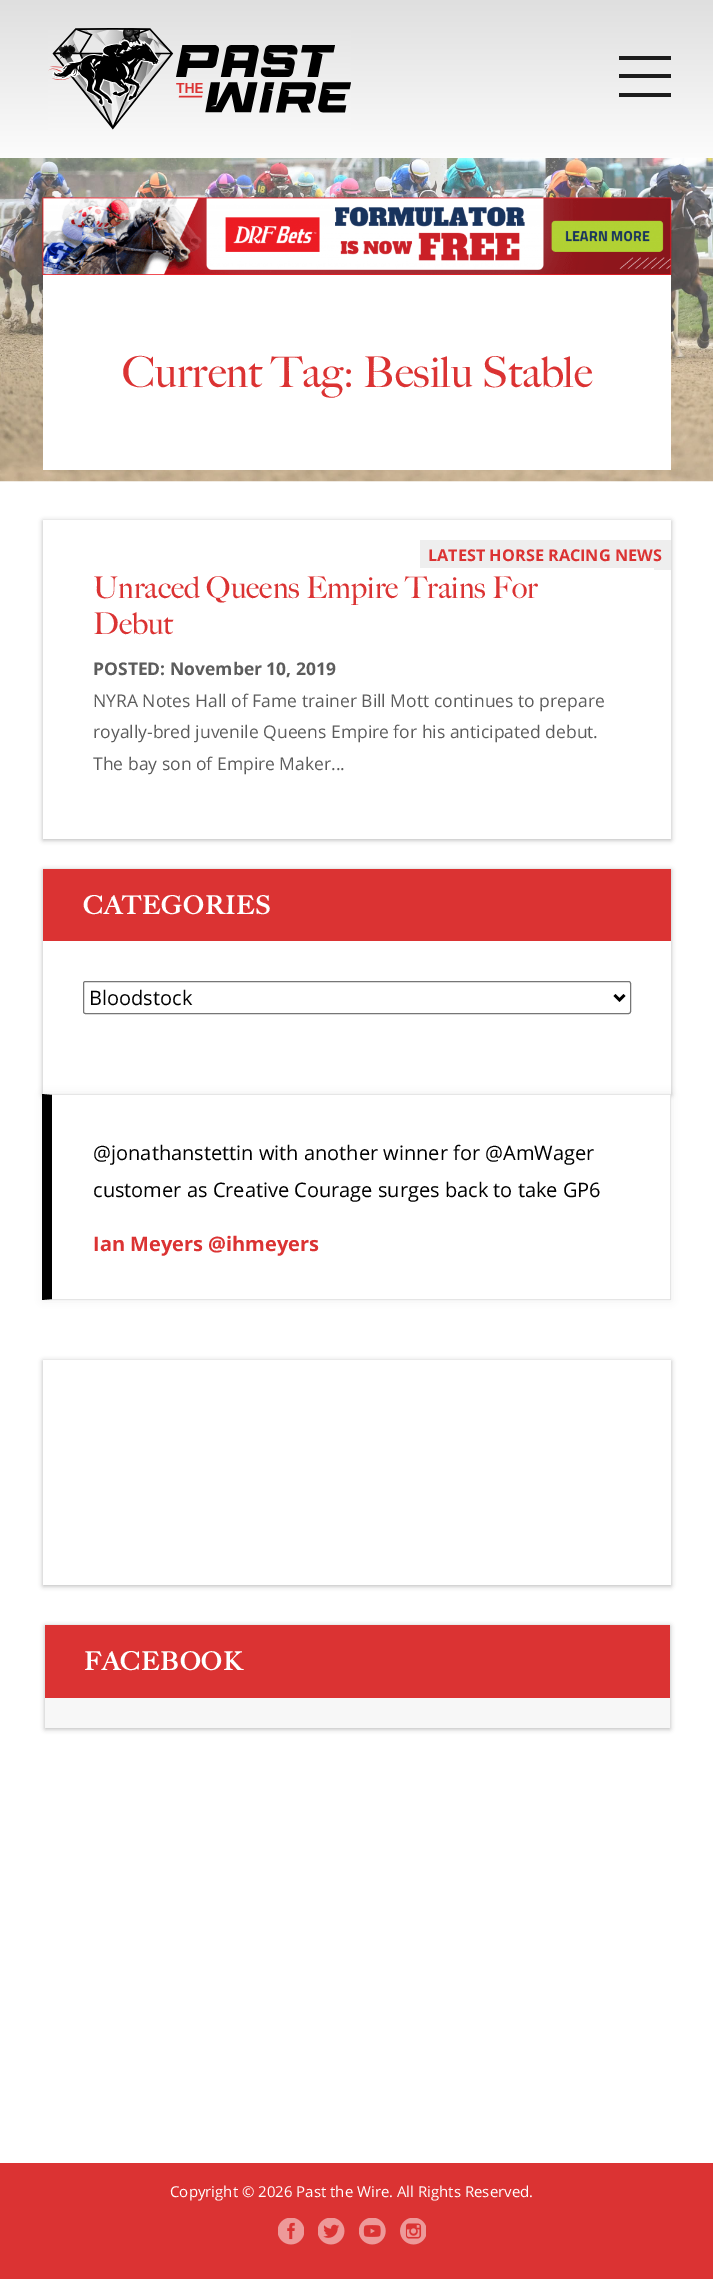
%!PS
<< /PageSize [713 2279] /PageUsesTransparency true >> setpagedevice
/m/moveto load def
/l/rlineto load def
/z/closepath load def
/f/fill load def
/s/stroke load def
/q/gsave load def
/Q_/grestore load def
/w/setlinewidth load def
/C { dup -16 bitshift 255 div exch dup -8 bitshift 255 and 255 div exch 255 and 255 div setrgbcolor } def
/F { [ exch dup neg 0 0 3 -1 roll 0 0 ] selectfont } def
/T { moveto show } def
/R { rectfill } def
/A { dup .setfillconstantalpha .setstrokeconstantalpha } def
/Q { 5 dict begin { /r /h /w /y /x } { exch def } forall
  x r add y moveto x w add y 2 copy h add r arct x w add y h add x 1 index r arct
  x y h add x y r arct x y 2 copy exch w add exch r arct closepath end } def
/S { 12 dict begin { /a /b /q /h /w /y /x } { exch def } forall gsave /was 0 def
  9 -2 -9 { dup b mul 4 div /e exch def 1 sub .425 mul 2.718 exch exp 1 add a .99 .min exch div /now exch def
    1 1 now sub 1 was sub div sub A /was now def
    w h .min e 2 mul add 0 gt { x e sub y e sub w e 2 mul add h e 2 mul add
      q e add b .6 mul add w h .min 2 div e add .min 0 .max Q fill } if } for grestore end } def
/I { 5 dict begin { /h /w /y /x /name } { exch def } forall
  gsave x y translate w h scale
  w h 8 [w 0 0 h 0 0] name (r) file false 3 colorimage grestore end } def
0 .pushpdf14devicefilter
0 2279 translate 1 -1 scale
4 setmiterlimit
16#FFFFFF C
0 0 713 2279 R
q 0 0 m 713 0 l 0 158 l -713 0 l z clip newpath
<< /ShadingType 2 /ColorSpace /DeviceRGB /Coords [357 0 357 158] /Extend [true true] /Function << /FunctionType 2 /Domain [0 1] /C0 [.875 .875 .875] /C1 [.988 .988 .988] /N 1 >> >> shfill Q_
(1.rgb) 48 28 303 102 I
16#1D1D1D C
619 56 52 4 R
619 74 52 4 R
619 93 52 4 R
(2.rgb) 0 158 713 324 I
16#000000 C
43 199 628 77 0 1 .4 S
(3.rgb) 42 197 630 78 I
16#FFFFFF C
43 275 628 195 R
/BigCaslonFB-Regular 42.5 F
16#DB3333 C
(Current Tag: Besilu Stable) 122 387 T
16#000000 C
43 521 628 319 0 2.5 .27 S
16#FFFFFF C
43 520 628 319 R
16#EEEEEE C
654 540 17 30 R
420 540 234 28 R
/OpenSans-Bold 16.25 F
16#DB3333 C
(LATEST HORSE RACING NEWS) 428 561 T
/BigCaslonFB-Regular 30 F
(Unraced Queens Empire Trains For) 93 598 T
(Debut) 93 634 T
/OpenSans-Bold 17.5 F
16#5C5C5C C
(POSTED: November 10, 2019) 93 675 T
/OpenSans-Regular 17.5 F
(NYRA Notes Hall of Fame trainer Bill Mott continues to prepare) 93 707 T
(royally-bred juvenile Queens Empire for his anticipated debut.) 93 738 T
(The bay son of Empire Maker...) 93 770 T
16#000000 C
43 870 628 225 0 2.5 .27 S
16#FFFFFF C
43 941 628 153 R
16#DB3333 C
43 869 628 72 R
/BigCaslonFB-Bold 25 F
16#FFFFFF C
83 914 m 1.25 0 (CATEGORIES) ashow
16#767676 C
83.5 981.5 547 32 2 Q s
16#000000 C
2.5 w
614.5 995 m 5 5 l 5 -5 l s
/OpenSans-Regular 20 F
(Bloodstock) 89 1005 T
43 1094 628 206 0 4 .07 S
16#FFFFFF C
43 1094 628 206 R
16#E6E6E6 C
42 1094 m 629 0 l -1 1 l -618 0 l z f
0.1 A
16#000000 C
671 1094 m 0 206 l -1 -1 l 0 -204 l z f
671 1300 m -629 0 l 10 -1 l 618 0 l z f
1 A
42 1300 m 0 -206 l 10 1 l 0 204 l z f
(@jonathanstettin with another winner for @AmWager) 93 1160 T
(customer as Creative Courage surges back to take GP6) 93 1197 T
/OpenSans-Bold 20 F
16#DB3333 C
(Ian Meyers @ihmeyers) 93 1251 T
q
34 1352 m 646 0 l 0 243 l -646 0 l z 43 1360 m 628 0 l 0 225 l -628 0 l z eoclip newpath
16#000000 C
43 1361 628 225 0 2.5 .27 S
Q_
16#000000 C
45 1626 625 103 0 2.5 .27 S
16#F7F7F7 C
45 1698 625 30 R
16#DB3333 C
45 1625 625 73 R
/BigCaslonFB-Bold 25 F
16#FFFFFF C
84 1670 m 1.25 0 (FACEBOOK) ashow
16#DB3333 C
0 2163 713 116 R
/OpenSans-Regular 15 F
16#FFFFFF C
(Copyright © 2026 Past the Wire. All Rights Reserved.) 170 2197 T
(4.rgb) 278 2218 26 27 I
(5.rgb) 318 2218 27 27 I
(6.rgb) 359 2218 27 27 I
(7.rgb) 400 2218 26 27 I
.poppdf14devicefilter showpage
